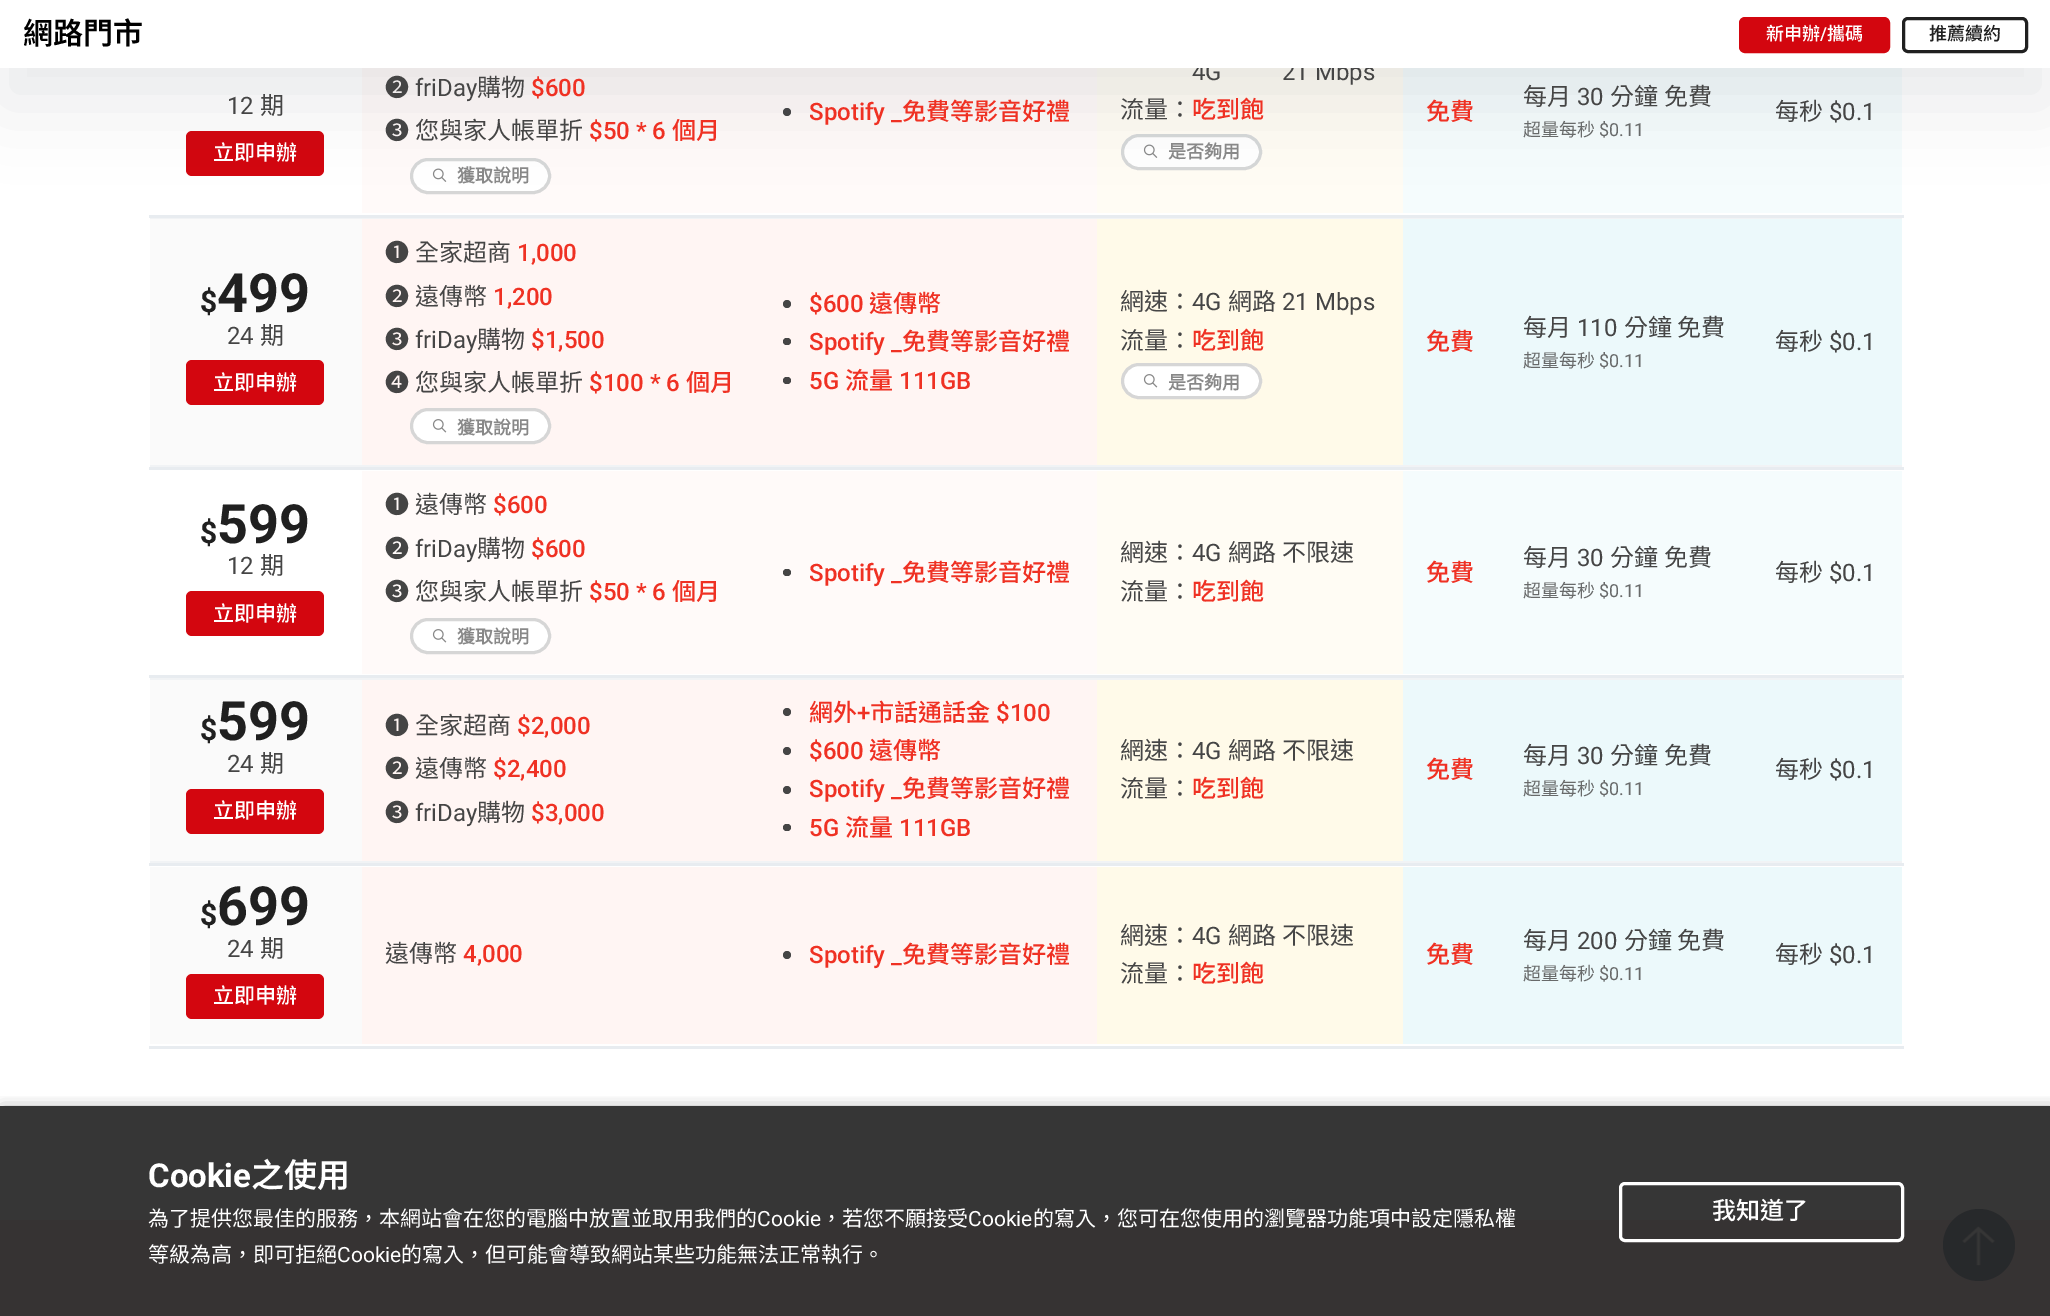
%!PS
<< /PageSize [2050 1316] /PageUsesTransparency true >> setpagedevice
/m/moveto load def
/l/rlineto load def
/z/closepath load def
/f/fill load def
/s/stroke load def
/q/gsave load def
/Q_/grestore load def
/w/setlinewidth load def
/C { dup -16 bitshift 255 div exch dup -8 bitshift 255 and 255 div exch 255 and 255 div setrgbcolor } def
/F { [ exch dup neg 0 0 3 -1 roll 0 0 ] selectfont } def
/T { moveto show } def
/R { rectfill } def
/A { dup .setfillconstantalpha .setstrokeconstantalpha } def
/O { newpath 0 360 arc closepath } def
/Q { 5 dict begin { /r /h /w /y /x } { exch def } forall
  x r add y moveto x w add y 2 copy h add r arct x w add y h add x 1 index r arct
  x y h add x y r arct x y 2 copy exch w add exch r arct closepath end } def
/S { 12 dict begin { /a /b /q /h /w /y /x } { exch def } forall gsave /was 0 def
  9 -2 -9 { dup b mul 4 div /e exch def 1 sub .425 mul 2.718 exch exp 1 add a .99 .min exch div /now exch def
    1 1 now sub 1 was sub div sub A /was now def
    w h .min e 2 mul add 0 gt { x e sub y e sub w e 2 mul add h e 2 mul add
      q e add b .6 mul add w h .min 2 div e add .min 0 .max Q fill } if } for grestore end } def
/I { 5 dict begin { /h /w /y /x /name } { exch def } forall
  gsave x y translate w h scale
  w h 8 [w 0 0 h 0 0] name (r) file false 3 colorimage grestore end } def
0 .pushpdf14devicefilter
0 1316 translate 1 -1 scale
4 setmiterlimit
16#FFFFFF C
0 0 2050 1316 R
16#D3060F C
186 131 138 45 6 Q f
16#FFFAF9 C
362 68 735 145 R
16#FFFFFF C
411.5 159.5 138 33 16.5 Q q f Q_
16#D6D6D6 C
3 w
s
(1.rgb) 432 168 15 14 I
16#454545 C
787 112 4 O f
16#FFFCF4 C
1097 68 306 145 R
16#FFFFFF C
1122.5 135.5 138 33 16.5 Q q f Q_
16#D6D6D6 C
s
(1.rgb) 1143 144 15 14 I
16#F5FCFD C
1403 68 499 145 R
16#4B5869 C
0 36 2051 68 0 36 .12 S
/Roboto-Regular 24 F
16#454545 C
(4G) 1192 80 T
(21 Mbps) 1282 80 T
16#FFFFFF C
0 0 2050 68 R
/NotoSansTC-SemiBold 30 F
16#000000 C
(網路門市) 23 44 T
16#D3060F C
1740.5 18.5 148 33 4.5 Q q f Q_
s
/NotoSansTC-Medium 18 F
16#FFFFFF C
(新申辦) 1766 40 T
/Roboto-Medium 18 F
(/) 1820 40 T
/NotoSansTC-Medium 18 F
(攜碼) 1827 40 T
16#202020 C
1903.5 18.5 123 33 4.5 Q s
(推薦續約) 1929 40 T
/Roboto-Regular 24 F
16#454545 C
(12) 227 114 T
/NotoSansTC-Regular 24 F
(期) 260 114 T
/NotoSansTC-Medium 21 F
16#FFFFFF C
(立即申辦) 213 160 T
/NotoSansTC-Regular 24 F
16#454545 C
(❷) 385 96 T
/Roboto-Regular 24 F
(friDay) 415 96 T
/NotoSansTC-Regular 24 F
(購物) 477 96 T
/Roboto-Medium 24 F
16#EF3123 C
($600) 531 96 T
/NotoSansTC-Regular 24 F
16#454545 C
385 139 m 1 0 32 (❸ 您與家人帳單折) widthshow
/Roboto-Medium 24 F
16#EF3123 C
($50 * 6) 589 139 T
/NotoSansTC-Medium 24 F
(個月) 672 139 T
/NotoSansCJKTC-Bold 18 F
16#888888 C
(獲取說明) 457 182 T
/Roboto-Medium 24 F
16#EF3123 C
(Spotify _) 809 120 T
/NotoSansTC-Medium 24 F
(免費等影音好禮) 902 120 T
/NotoSansTC-Regular 24 F
16#454545 C
(流量：) 1120 118 T
/NotoSansTC-Medium 24 F
16#EF3123 C
(吃到飽) 1192 118 T
/NotoSansCJKTC-Bold 18 F
16#888888 C
(是否夠用) 1168 158 T
/NotoSansTC-Medium 24 F
16#EF3123 C
(免費) 1426 120 T
/NotoSansTC-Regular 24 F
16#454545 C
(每月) 1523 105 T
/Roboto-Regular 24 F
(30) 1577 105 T
/NotoSansTC-Regular 24 F
1610 105 m 1 0 32 (分鐘 免費) widthshow
/NotoSansTC-Regular 18 F
16#686A6A C
(超量每秒) 1523 136 T
/Roboto-Regular 18 F
($0.11) 1599 136 T
16#E8ECF0 C
149 215 1755 3 R
/NotoSansTC-Regular 24 F
16#454545 C
(每秒) 1775 120 T
/Roboto-Regular 24 F
($0.1) 1829 120 T
16#F1F3F5 C
150 218 1752 249 R
16#FAFAFA C
150 219 212 246 R
/Roboto-Bold 30 F
16#202020 C
($) 200 312 T
/Roboto-Bold 54 F
(499) 217 312 T
/Roboto-Regular 24 F
16#454545 C
(24) 227 344 T
/NotoSansTC-Regular 24 F
(期) 260 344 T
16#D3060F C
186 360 138 45 6 Q f
/NotoSansTC-Medium 21 F
16#FFFFFF C
(立即申辦) 213 390 T
16#FFF5F3 C
362 219 735 246 R
/NotoSansTC-Regular 24 F
16#454545 C
385 261 m 1 0 32 (❶ 全家超商) widthshow
/Roboto-Medium 24 F
16#EF3123 C
(1,000) 517 261 T
/NotoSansTC-Regular 24 F
16#454545 C
385 305 m 1 0 32 (❷ 遠傳幣) widthshow
/Roboto-Medium 24 F
16#EF3123 C
(1,200) 493 305 T
/NotoSansTC-Regular 24 F
16#454545 C
(❸) 385 348 T
/Roboto-Regular 24 F
(friDay) 415 348 T
/NotoSansTC-Regular 24 F
(購物) 477 348 T
/Roboto-Medium 24 F
16#EF3123 C
($1,500) 531 348 T
/NotoSansTC-Regular 24 F
16#454545 C
385 391 m 1 0 32 (❹ 您與家人帳單折) widthshow
/Roboto-Medium 24 F
16#EF3123 C
($100 * 6) 589 391 T
/NotoSansTC-Medium 24 F
(個月) 686 391 T
16#FFFFFF C
411.5 409.5 138 33 16.5 Q q f Q_
16#D6D6D6 C
s
(2.rgb) 432 419 15 14 I
/NotoSansCJKTC-Bold 18 F
16#888888 C
(獲取說明) 457 434 T
16#454545 C
787 304 4 O f
/Roboto-Medium 24 F
16#EF3123 C
($600) 809 312 T
/NotoSansTC-Medium 24 F
(遠傳幣) 869 312 T
16#454545 C
783 338 8 7 3.5 Q f
/Roboto-Medium 24 F
16#EF3123 C
(Spotify _) 809 350 T
/NotoSansTC-Medium 24 F
(免費等影音好禮) 902 350 T
16#454545 C
783 377 8 7 3.5 Q f
/Roboto-Medium 24 F
16#EF3123 C
(5G) 809 389 T
/NotoSansTC-Medium 24 F
(流量) 845 389 T
/Roboto-Medium 24 F
(111GB) 899 389 T
16#FFFAE9 C
1097 219 306 246 R
/NotoSansTC-Regular 24 F
16#454545 C
(網速：) 1120 310 T
/Roboto-Regular 24 F
(4G) 1192 310 T
/NotoSansTC-Regular 24 F
(網路) 1228 310 T
/Roboto-Regular 24 F
(21 Mbps) 1282 310 T
/NotoSansTC-Regular 24 F
(流量：) 1120 349 T
/NotoSansTC-Medium 24 F
16#EF3123 C
(吃到飽) 1192 349 T
16#FFFFFF C
1122.5 364.5 138 33 16.5 Q q f Q_
16#D6D6D6 C
s
(2.rgb) 1143 374 15 14 I
/NotoSansCJKTC-Bold 18 F
16#888888 C
(是否夠用) 1168 389 T
16#ECF9FB C
1403 219 499 246 R
/NotoSansTC-Medium 24 F
16#EF3123 C
(免費) 1426 350 T
/NotoSansTC-Regular 24 F
16#454545 C
(每月) 1523 336 T
/Roboto-Regular 24 F
(110) 1577 336 T
/NotoSansTC-Regular 24 F
(分鐘 免費) 1624 336 T
/NotoSansTC-Regular 18 F
16#686A6A C
(超量每秒) 1523 367 T
/Roboto-Regular 18 F
($0.11) 1599 367 T
16#E8ECF0 C
149 467 1755 3 R
/NotoSansTC-Regular 24 F
16#454545 C
(每秒) 1775 350 T
/Roboto-Regular 24 F
($0.1) 1829 350 T
/Roboto-Bold 30 F
16#202020 C
($) 200 543 T
/Roboto-Bold 54 F
(599) 217 543 T
/Roboto-Regular 24 F
16#454545 C
(12) 227 574 T
/NotoSansTC-Regular 24 F
(期) 260 574 T
16#D3060F C
186 591 138 45 6 Q f
/NotoSansTC-Medium 21 F
16#FFFFFF C
(立即申辦) 213 621 T
16#FFFAF9 C
362 471 735 203 R
/NotoSansTC-Regular 24 F
16#454545 C
385 513 m 1 0 32 (❶ 遠傳幣) widthshow
/Roboto-Medium 24 F
16#EF3123 C
($600) 493 513 T
/NotoSansTC-Regular 24 F
16#454545 C
(❷) 385 557 T
/Roboto-Regular 24 F
(friDay) 415 557 T
/NotoSansTC-Regular 24 F
(購物) 477 557 T
/Roboto-Medium 24 F
16#EF3123 C
($600) 531 557 T
/NotoSansTC-Regular 24 F
16#454545 C
385 600 m 1 0 32 (❸ 您與家人帳單折) widthshow
/Roboto-Medium 24 F
16#EF3123 C
($50 * 6) 589 600 T
/NotoSansTC-Medium 24 F
(個月) 672 600 T
16#FFFFFF C
411.5 619.5 138 33 16.5 Q q f Q_
16#D6D6D6 C
s
(2.rgb) 432 629 15 14 I
/NotoSansCJKTC-Bold 18 F
16#888888 C
(獲取說明) 457 643 T
16#454545 C
783 569 8 7 3.5 Q f
/Roboto-Medium 24 F
16#EF3123 C
(Spotify _) 809 581 T
/NotoSansTC-Medium 24 F
(免費等影音好禮) 902 581 T
16#FFFCF4 C
1097 471 306 203 R
/NotoSansTC-Regular 24 F
16#454545 C
(網速：) 1120 561 T
/Roboto-Regular 24 F
(4G) 1192 561 T
/NotoSansTC-Regular 24 F
1228 561 m 1 0 32 (網路 不限速) widthshow
(流量：) 1120 600 T
/NotoSansTC-Medium 24 F
16#EF3123 C
(吃到飽) 1192 600 T
16#F5FCFD C
1403 471 499 203 R
16#EF3123 C
(免費) 1426 581 T
/NotoSansTC-Regular 24 F
16#454545 C
(每月) 1523 566 T
/Roboto-Regular 24 F
(30) 1577 566 T
/NotoSansTC-Regular 24 F
1610 566 m 1 0 32 (分鐘 免費) widthshow
/NotoSansTC-Regular 18 F
16#686A6A C
(超量每秒) 1523 597 T
/Roboto-Regular 18 F
($0.11) 1599 597 T
16#E8ECF0 C
149 675 1755 3 R
/NotoSansTC-Regular 24 F
16#454545 C
(每秒) 1775 581 T
/Roboto-Regular 24 F
($0.1) 1829 581 T
16#F1F3F5 C
150 678 1752 185 R
16#FAFAFA C
150 680 212 181 R
/Roboto-Bold 30 F
16#202020 C
($) 200 740 T
/Roboto-Bold 54 F
(599) 217 740 T
/Roboto-Regular 24 F
16#454545 C
(24) 227 772 T
/NotoSansTC-Regular 24 F
(期) 260 772 T
16#D3060F C
186 789 138 45 6 Q f
/NotoSansTC-Medium 21 F
16#FFFFFF C
(立即申辦) 213 818 T
16#FFF5F3 C
362 680 735 181 R
/NotoSansTC-Regular 24 F
16#454545 C
385 734 m 1 0 32 (❶ 全家超商) widthshow
/Roboto-Medium 24 F
16#EF3123 C
($2,000) 517 734 T
/NotoSansTC-Regular 24 F
16#454545 C
385 777 m 1 0 32 (❷ 遠傳幣) widthshow
/Roboto-Medium 24 F
16#EF3123 C
($2,400) 493 777 T
/NotoSansTC-Regular 24 F
16#454545 C
(❸) 385 821 T
/Roboto-Regular 24 F
(friDay) 415 821 T
/NotoSansTC-Regular 24 F
(購物) 477 821 T
/Roboto-Medium 24 F
16#EF3123 C
($3,000) 531 821 T
16#454545 C
787 712 4 O f
/NotoSansTC-Medium 24 F
16#EF3123 C
(網外) 809 721 T
/Roboto-Medium 24 F
(+) 857 721 T
/NotoSansTC-Medium 24 F
(市話通話金) 870 721 T
/Roboto-Medium 24 F
($100) 996 721 T
16#454545 C
787 751 4 O f
16#EF3123 C
($600) 809 759 T
/NotoSansTC-Medium 24 F
(遠傳幣) 869 759 T
16#454545 C
787 790 4 O f
/Roboto-Medium 24 F
16#EF3123 C
(Spotify _) 809 797 T
/NotoSansTC-Medium 24 F
(免費等影音好禮) 902 797 T
16#454545 C
783 824 8 7 3.5 Q f
/Roboto-Medium 24 F
16#EF3123 C
(5G) 809 836 T
/NotoSansTC-Medium 24 F
(流量) 845 836 T
/Roboto-Medium 24 F
(111GB) 899 836 T
16#FFFAE9 C
1097 680 306 181 R
/NotoSansTC-Regular 24 F
16#454545 C
(網速：) 1120 759 T
/Roboto-Regular 24 F
(4G) 1192 759 T
/NotoSansTC-Regular 24 F
1228 759 m 1 0 32 (網路 不限速) widthshow
(流量：) 1120 797 T
/NotoSansTC-Medium 24 F
16#EF3123 C
(吃到飽) 1192 797 T
16#ECF9FB C
1403 680 499 181 R
16#EF3123 C
(免費) 1426 778 T
/NotoSansTC-Regular 24 F
16#454545 C
(每月) 1523 764 T
/Roboto-Regular 24 F
(30) 1577 764 T
/NotoSansTC-Regular 24 F
1610 764 m 1 0 32 (分鐘 免費) widthshow
/NotoSansTC-Regular 18 F
16#686A6A C
(超量每秒) 1523 795 T
/Roboto-Regular 18 F
($0.11) 1599 795 T
16#E8ECF0 C
149 863 1755 3 R
/NotoSansTC-Regular 24 F
16#454545 C
(每秒) 1775 778 T
/Roboto-Regular 24 F
($0.1) 1829 778 T
16#FAFAFA C
150 867 212 177 R
/Roboto-Bold 30 F
16#202020 C
($) 200 925 T
/Roboto-Bold 54 F
(699) 217 925 T
/Roboto-Regular 24 F
16#454545 C
(24) 227 957 T
/NotoSansTC-Regular 24 F
(期) 260 957 T
16#D3060F C
186 974 138 45 6 Q f
/NotoSansTC-Medium 21 F
16#FFFFFF C
(立即申辦) 213 1003 T
16#FFF5F3 C
362 867 735 177 R
/NotoSansTC-Regular 24 F
16#454545 C
(遠傳幣) 385 962 T
/Roboto-Medium 24 F
16#EF3123 C
(4,000) 463 962 T
16#454545 C
787 955 4 O f
16#EF3123 C
(Spotify _) 809 963 T
/NotoSansTC-Medium 24 F
(免費等影音好禮) 902 963 T
16#FFFAE9 C
1097 867 306 177 R
/NotoSansTC-Regular 24 F
16#454545 C
(網速：) 1120 944 T
/Roboto-Regular 24 F
(4G) 1192 944 T
/NotoSansTC-Regular 24 F
1228 944 m 1 0 32 (網路 不限速) widthshow
(流量：) 1120 982 T
/NotoSansTC-Medium 24 F
16#EF3123 C
(吃到飽) 1192 982 T
16#ECF9FB C
1403 867 499 177 R
16#EF3123 C
(免費) 1426 963 T
/NotoSansTC-Regular 24 F
16#454545 C
(每月) 1523 949 T
/Roboto-Regular 24 F
(200) 1577 949 T
/NotoSansTC-Regular 24 F
(分鐘 免費) 1624 949 T
/NotoSansTC-Regular 18 F
16#686A6A C
(超量每秒) 1523 980 T
/Roboto-Regular 18 F
($0.11) 1599 980 T
16#E8ECF0 C
149 1046 1755 3 R
/NotoSansTC-Regular 24 F
16#454545 C
(每秒) 1775 963 T
/Roboto-Regular 24 F
($0.1) 1829 963 T
q 0 1220 m 2050 0 l 0 96 l -2050 0 l z clip newpath
<< /ShadingType 2 /ColorSpace /DeviceRGB /Coords [1025 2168 1025 1220] /Extend [true true] /Function << /FunctionType 2 /Domain [0 1] /C0 [1 .933 .945] /C1 [1 .867 .89] /N 1 >> >> shfill Q_
16#6A798E C
1979 1245 36 O f
(3.rgb) 1962 1226 33 40 I
q
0 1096 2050 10 rectclip
16#000000 C
2 1107 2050 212 0 7.5 .3 S
Q_
0.9 A
16#202020 C
0 1106 2050 210 R
/Roboto-Bold 33 F
1 A
16#FFFFFF C
(Cookie) 148 1187 T
/NotoSansTC-SemiBold 33 F
(之使用) 251 1187 T
/NotoSansTC-Regular 21 F
(為了提供您最佳的服務，本網站會在您的電腦中放置並取用我們的) 148 1226 T
/Roboto-Regular 21 F
(Cookie) 757 1226 T
/NotoSansTC-Regular 21 F
(，若您不願接受) 821 1226 T
/Roboto-Regular 21 F
(Cookie) 968 1226 T
/NotoSansTC-Regular 21 F
(的寫入，您可在您使用的瀏覽器功能項中設定隱私權) 1033 1226 T
(等級為高，即可拒絕) 148 1262 T
/Roboto-Regular 21 F
(Cookie) 337 1262 T
/NotoSansTC-Regular 21 F
(的寫入，但可能會導致網站某些功能無法正常執行。) 401 1262 T
1620.5 1183.5 282 57 4.5 Q s
/NotoSansTC-Medium 24 F
(我知道了) 1712 1219 T
.poppdf14devicefilter showpage
